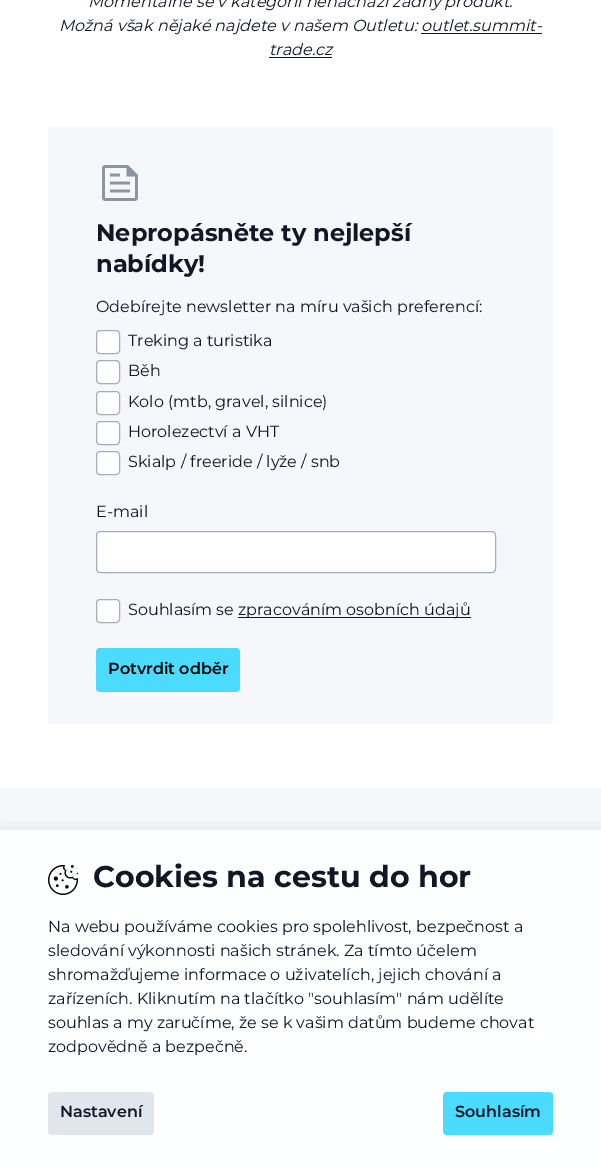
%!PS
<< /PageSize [601 1167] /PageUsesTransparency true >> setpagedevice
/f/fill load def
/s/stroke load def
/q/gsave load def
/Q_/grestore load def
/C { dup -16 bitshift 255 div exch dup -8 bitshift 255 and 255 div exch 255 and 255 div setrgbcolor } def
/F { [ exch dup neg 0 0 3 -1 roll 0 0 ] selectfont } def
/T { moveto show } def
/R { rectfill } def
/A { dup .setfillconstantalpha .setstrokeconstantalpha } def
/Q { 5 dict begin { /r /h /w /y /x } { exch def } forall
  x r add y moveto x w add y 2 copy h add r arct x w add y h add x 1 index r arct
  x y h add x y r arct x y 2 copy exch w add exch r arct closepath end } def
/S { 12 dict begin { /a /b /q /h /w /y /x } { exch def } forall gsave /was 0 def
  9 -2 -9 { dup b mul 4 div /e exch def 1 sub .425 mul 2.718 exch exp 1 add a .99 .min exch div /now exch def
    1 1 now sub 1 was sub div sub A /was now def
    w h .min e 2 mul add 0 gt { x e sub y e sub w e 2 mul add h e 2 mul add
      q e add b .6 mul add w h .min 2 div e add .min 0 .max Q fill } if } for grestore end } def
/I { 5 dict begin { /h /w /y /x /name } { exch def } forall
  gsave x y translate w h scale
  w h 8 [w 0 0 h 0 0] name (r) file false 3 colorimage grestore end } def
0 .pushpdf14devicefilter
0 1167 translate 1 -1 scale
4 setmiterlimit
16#FFFFFF C
0 0 601 1167 R
/Montserrat-Italic 16 F
16#111727 C
(Momentálně se v kategorii nenachází žádný produkt.) 88 7 T
(Možná však nějaké najdete v našem Outletu: outlet.summit-) 59 31 T
(trade.cz) 269 55 T
421 33 121 1 R
269 57 63 1 R
16#F5F7FB C
48 127 505 597 R
(1.rgb) 102 165 36 36 I
/Montserrat-Bold 24 F
16#111727 C
(Nepropásněte ty nejlepší) 96 241 T
(nabídky!) 96 272 T
/Montserrat-Regular 16 F
(Odebírejte newsletter na míru vašich preferencí:) 96 312 T
16#FFFFFF C
96.5 330.5 23 23 3.5 Q q f Q_
16#A3ADBB C
s
16#111727 C
(Treking a turistika) 128 346 T
16#FFFFFF C
96.5 360.5 23 23 3.5 Q q f Q_
16#A3ADBB C
s
16#111727 C
(Běh) 128 376 T
16#FFFFFF C
96.5 391.5 23 23 3.5 Q q f Q_
16#A3ADBB C
s
16#111727 C
(Kolo \(mtb, gravel, silnice\)) 128 407 T
16#FFFFFF C
96.5 421.5 23 23 3.5 Q q f Q_
16#A3ADBB C
s
16#111727 C
(Horolezectví a VHT) 128 437 T
16#FFFFFF C
96.5 451.5 23 23 3.5 Q q f Q_
16#A3ADBB C
s
16#111727 C
(Skialp / freeride / lyže / snb) 128 467 T
(E-mail) 96 517 T
16#FFFFFF C
96.5 531.5 399 41 3.5 Q q f Q_
16#A3ADBB C
s
16#FFFFFF C
96.5 599.5 23 23 3.5 Q q f Q_
16#A3ADBB C
s
16#111727 C
(Souhlasím se) 128 615 T
238 617 233 1 R
(zpracováním osobních údajů) 238 615 T
16#4BDBFF C
96 648 144 44 4 Q f
/Montserrat-SemiBold 16 F
16#000000 C
(Potvrdit odběr) 108 674 T
16#F5F7FB C
0 788 601 379 R
q
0 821 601 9 rectclip
16#646464 C
3 833 595 331 0 9.5 .2 S
Q_
0.95 A
16#FFFFFF C
0 830 601 337 R
1 A
(2.rgb) 48 865 30 30 I
/Montserrat-Bold 30 F
16#111727 C
(Cookies na cestu do hor) 93 887 T
/Montserrat-Regular 16 F
(Na webu používáme cookies pro spolehlivost, bezpečnost a) 48 932 T
(sledování výkonnosti našich stránek. Za tímto účelem) 48 956 T
(shromažďujeme informace o uživatelích, jejich chování a) 48 980 T
(zařízeních. Kliknutím na tlačítko "souhlasím" nám udělíte) 48 1004 T
(souhlas a my zaručíme, že se k vašim datům budeme chovat) 48 1028 T
(zodpovědně a bezpečně.) 48 1052 T
16#E1E6ED C
48 1092 106 43 4 Q f
/Montserrat-SemiBold 16 F
16#111727 C
(Nastavení) 60 1117 T
16#4BDBFF C
443 1092 110 43 4 Q f
16#111727 C
(Souhlasím) 455 1117 T
.poppdf14devicefilter showpage
